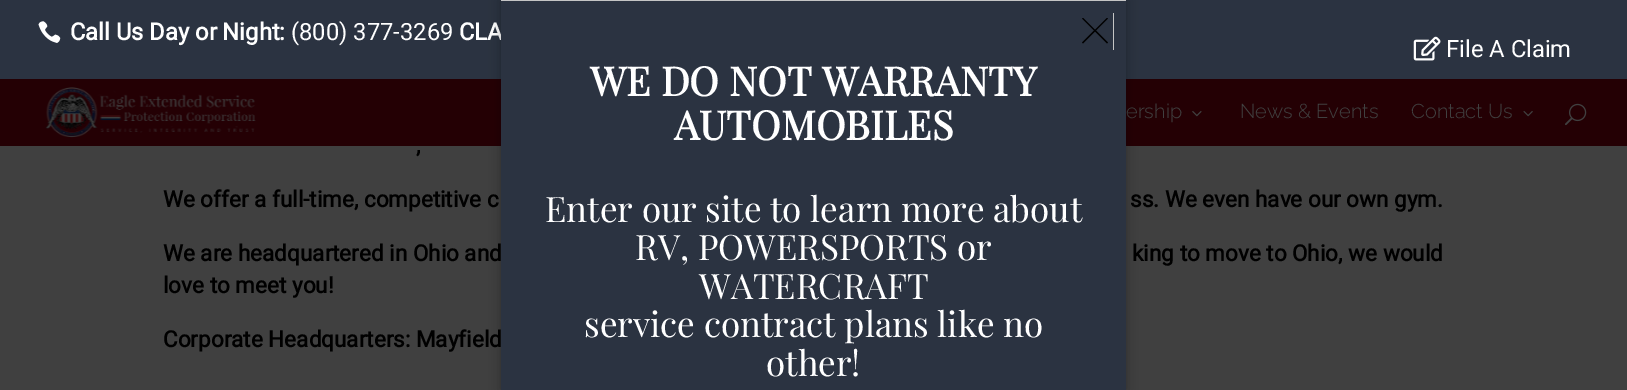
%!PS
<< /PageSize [1627 390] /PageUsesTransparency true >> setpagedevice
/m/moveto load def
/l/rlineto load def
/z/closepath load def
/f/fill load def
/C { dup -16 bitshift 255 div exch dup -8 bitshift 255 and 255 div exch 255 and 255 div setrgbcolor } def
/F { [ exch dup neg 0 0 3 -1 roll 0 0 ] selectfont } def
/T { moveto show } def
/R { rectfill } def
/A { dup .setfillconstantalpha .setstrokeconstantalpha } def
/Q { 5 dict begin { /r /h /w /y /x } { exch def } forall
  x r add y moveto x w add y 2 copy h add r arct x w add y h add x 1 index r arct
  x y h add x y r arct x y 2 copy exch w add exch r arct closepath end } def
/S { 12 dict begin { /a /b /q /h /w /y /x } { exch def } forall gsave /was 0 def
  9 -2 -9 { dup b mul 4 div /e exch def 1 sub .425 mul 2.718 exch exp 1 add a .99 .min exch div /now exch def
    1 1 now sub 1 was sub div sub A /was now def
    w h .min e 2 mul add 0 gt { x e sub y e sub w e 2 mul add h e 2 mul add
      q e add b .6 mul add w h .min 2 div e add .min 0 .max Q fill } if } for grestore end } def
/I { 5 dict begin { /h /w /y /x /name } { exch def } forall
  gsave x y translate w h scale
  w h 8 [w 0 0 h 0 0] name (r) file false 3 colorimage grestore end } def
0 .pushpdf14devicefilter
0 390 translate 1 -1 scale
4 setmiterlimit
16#404040 C
0 0 1627 390 R
16#2B3341 C
0 0 1627 79 R
(1.rgb) 38 21 23 22 I
/Roboto-Bold 23.75 F
16#FFFFFF C
(Call Us Day or Night:) 70 40 T
/Roboto-Regular 23.75 F
(\(800\) 377-3269) 291 40 T
/Roboto-Bold 23.75 F
(CLA) 459 40 T
(2.rgb) 1413 36 28 25 I
/Roboto-Regular 23.75 F
(File A Claim) 1446 57 T
16#240004 C
0 79 1627 67 R
(3.rgb) 45 87 211 51 I
/Raleway-Light 20 F
16#404040 C
(ership) 1126 118 T
(4.rgb) 1192 111 10 6 I
(News & Events) 1240 118 T
(Contact Us) 1411 118 T
(5.rgb) 1523 111 10 6 I
(6.rgb) 1565 103 22 23 I
/Roboto-Bold 22.5 F
16#000000 C
(,) 416 153 T
(We offer a full-time, competitive c) 163 207 T
(ss. We even have our own gym.) 1130 207 T
(We are headquartered in Ohio and) 163 261 T
(king to move to Ohio, we would) 1132 261 T
(love to meet you!) 163 293 T
(Corporate Headquarters: Mayfield) 163 347 T
501 0 625 390 0 6 .3 S
16#2B3341 C
501 1 625 389 R
16#C5C5C5 C
501 0 625 1 R
1113 13 1 37 R
16#000000 C
1083 18 m 25 24.5 l -1 1 l -25 -25 l z f
1082 42.5 m 25 -24.5 l 1 .5 l -25 25 l z f
/PlayfairDisplay-Bold 40 F
16#FFFFFF C
(WE DO NOT WARRANTY) 590 96 T
(AUTOMOBILES) 674 140 T
/PlayfairDisplay-Regular 35 F
(Enter our site to learn more about) 545 222 T
(RV, POWERSPORTS or) 635 260 T
(WATERCRAFT) 699 299 T
(service contract plans like no) 584 337 T
(other!) 766 376 T
.poppdf14devicefilter showpage
